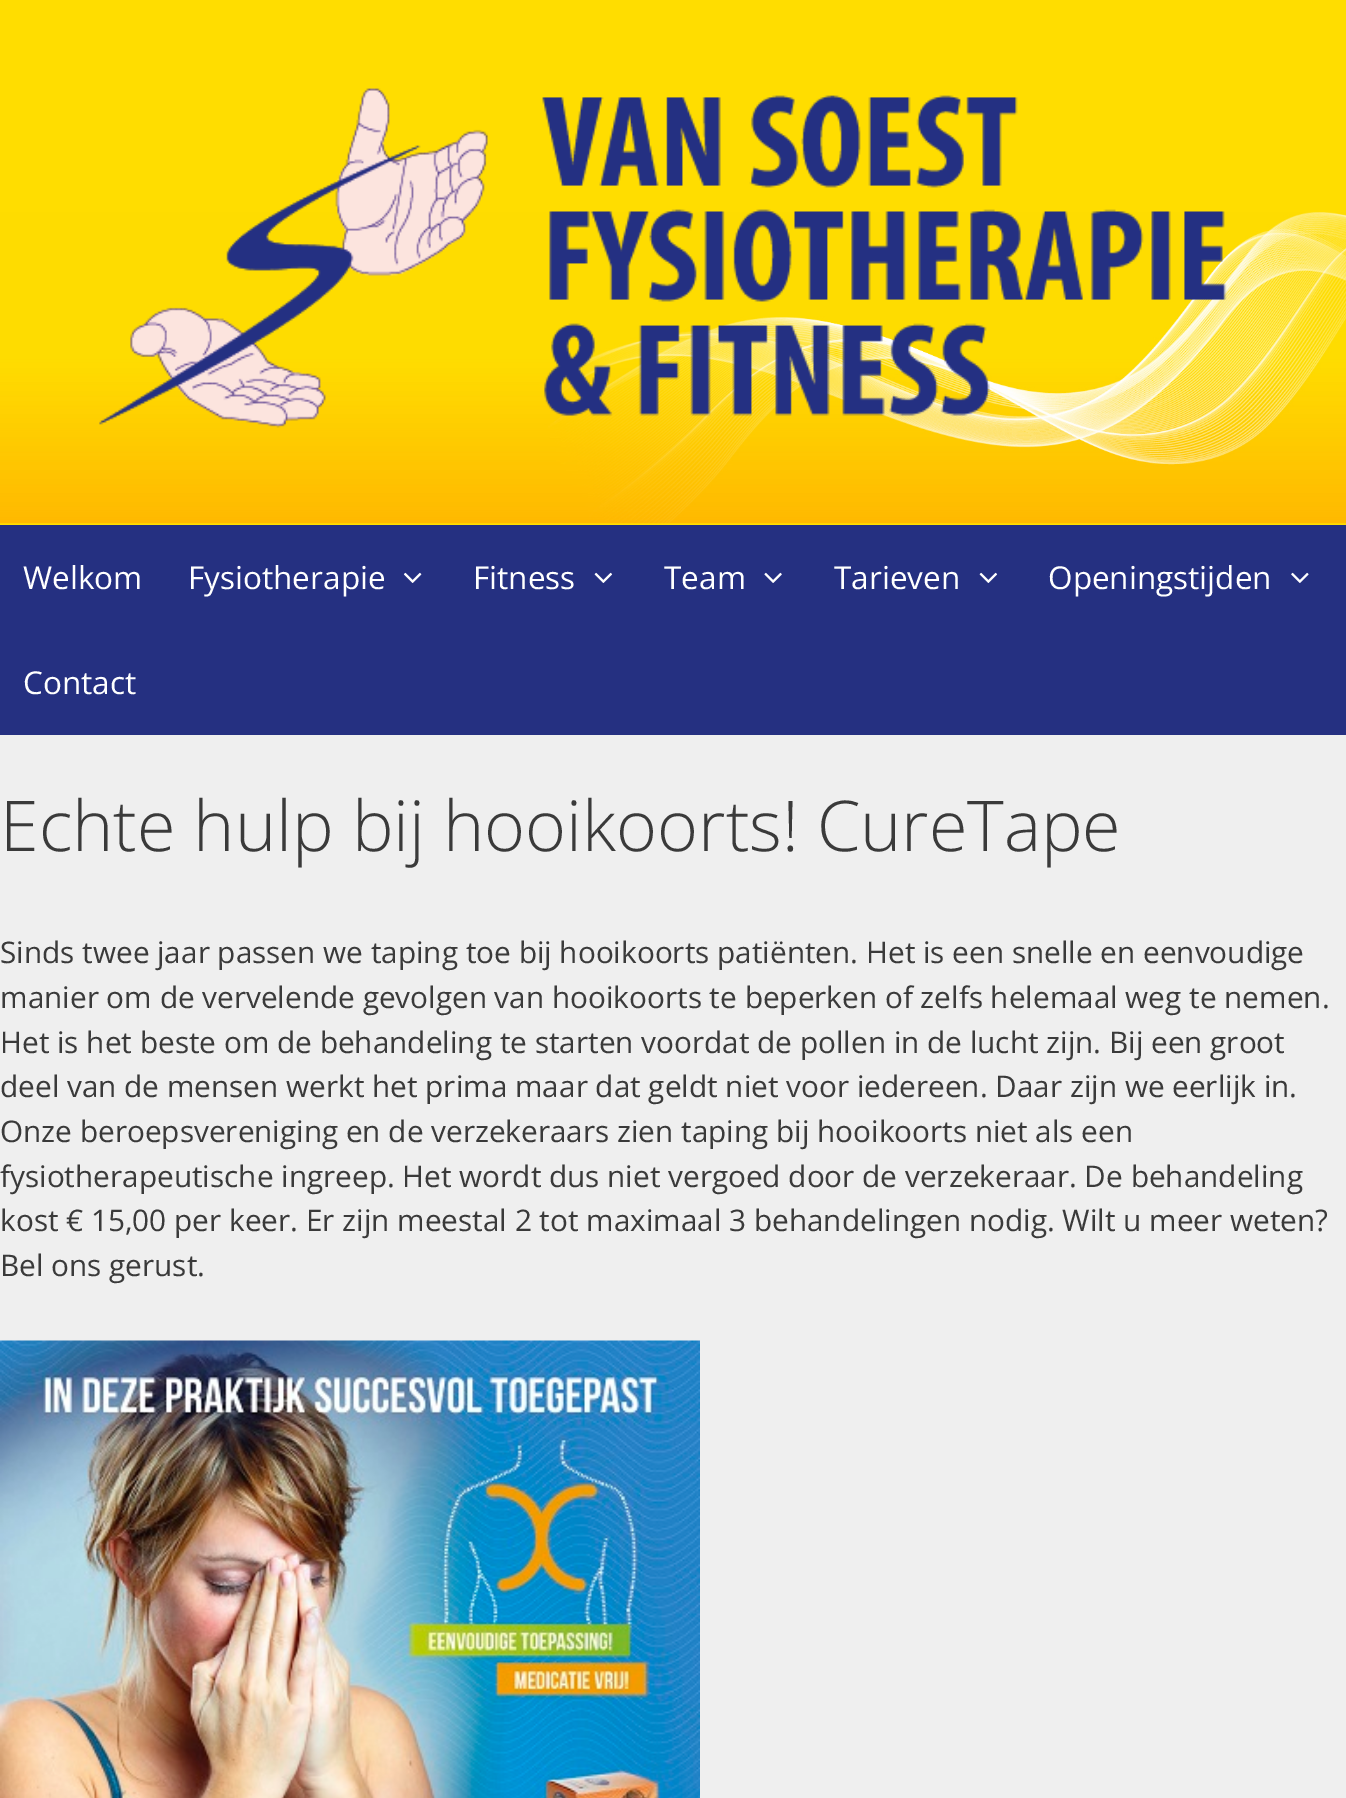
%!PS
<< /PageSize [1346 1798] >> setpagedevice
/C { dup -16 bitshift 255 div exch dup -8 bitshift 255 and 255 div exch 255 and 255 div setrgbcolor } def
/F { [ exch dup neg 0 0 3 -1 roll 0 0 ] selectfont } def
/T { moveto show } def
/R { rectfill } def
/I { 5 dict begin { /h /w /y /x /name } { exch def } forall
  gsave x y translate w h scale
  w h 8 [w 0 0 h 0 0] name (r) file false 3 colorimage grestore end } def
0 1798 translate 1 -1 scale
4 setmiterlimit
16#EFEFEF C
0 0 1346 1798 R
16#FFDD00 C
0 0 1346 525 R
(1.rgb) 0 212 1346 312 I
(2.rgb) 99 88 1128 340 I
16#253081 C
0 525 1346 210 R
/OpenSans-Regular 31.5 F
16#FFFFFF C
(Welkom) 23 589 T
(Fysiotherapie) 188 589 T
(3.rgb) 403 572 19 11 I
(Fitness) 473 589 T
(4.rgb) 594 572 19 11 I
(Team) 664 589 T
(5.rgb) 764 572 18 11 I
(Tarieven) 834 589 T
(4.rgb) 979 572 19 11 I
(Openingstijden) 1048 589 T
(6.rgb) 1291 572 18 11 I
(Contact) 23 694 T
/OpenSans-Light 70 F
16#3A3A3A C
(Echte hulp bij hooikoorts! CureTape) 0 851 T
/OpenSans-Regular 29.75 F
(Sinds twee jaar passen we taping toe bij hooikoorts patiënten. Het is een snelle en eenvoudige) 0 963 T
(manier om de vervelende gevolgen van hooikoorts te beperken of zelfs helemaal weg te nemen.) 0 1008 T
(Het is het beste om de behandeling te starten voordat de pollen in de lucht zijn. Bij een groot) 0 1053 T
(deel van de mensen werkt het prima maar dat geldt niet voor iedereen. Daar zijn we eerlijk in.) 0 1097 T
(Onze beroepsvereniging en de verzekeraars zien taping bij hooikoorts niet als een) 0 1142 T
(fysiotherapeutische ingreep. Het wordt dus niet vergoed door de verzekeraar. De behandeling) 0 1187 T
(kost € 15,00 per keer. Er zijn meestal 2 tot maximaal 3 behandelingen nodig. Wilt u meer weten?) 0 1231 T
(Bel ons gerust.) 0 1276 T
(7.rgb) 0 1340 700 458 I
showpage
